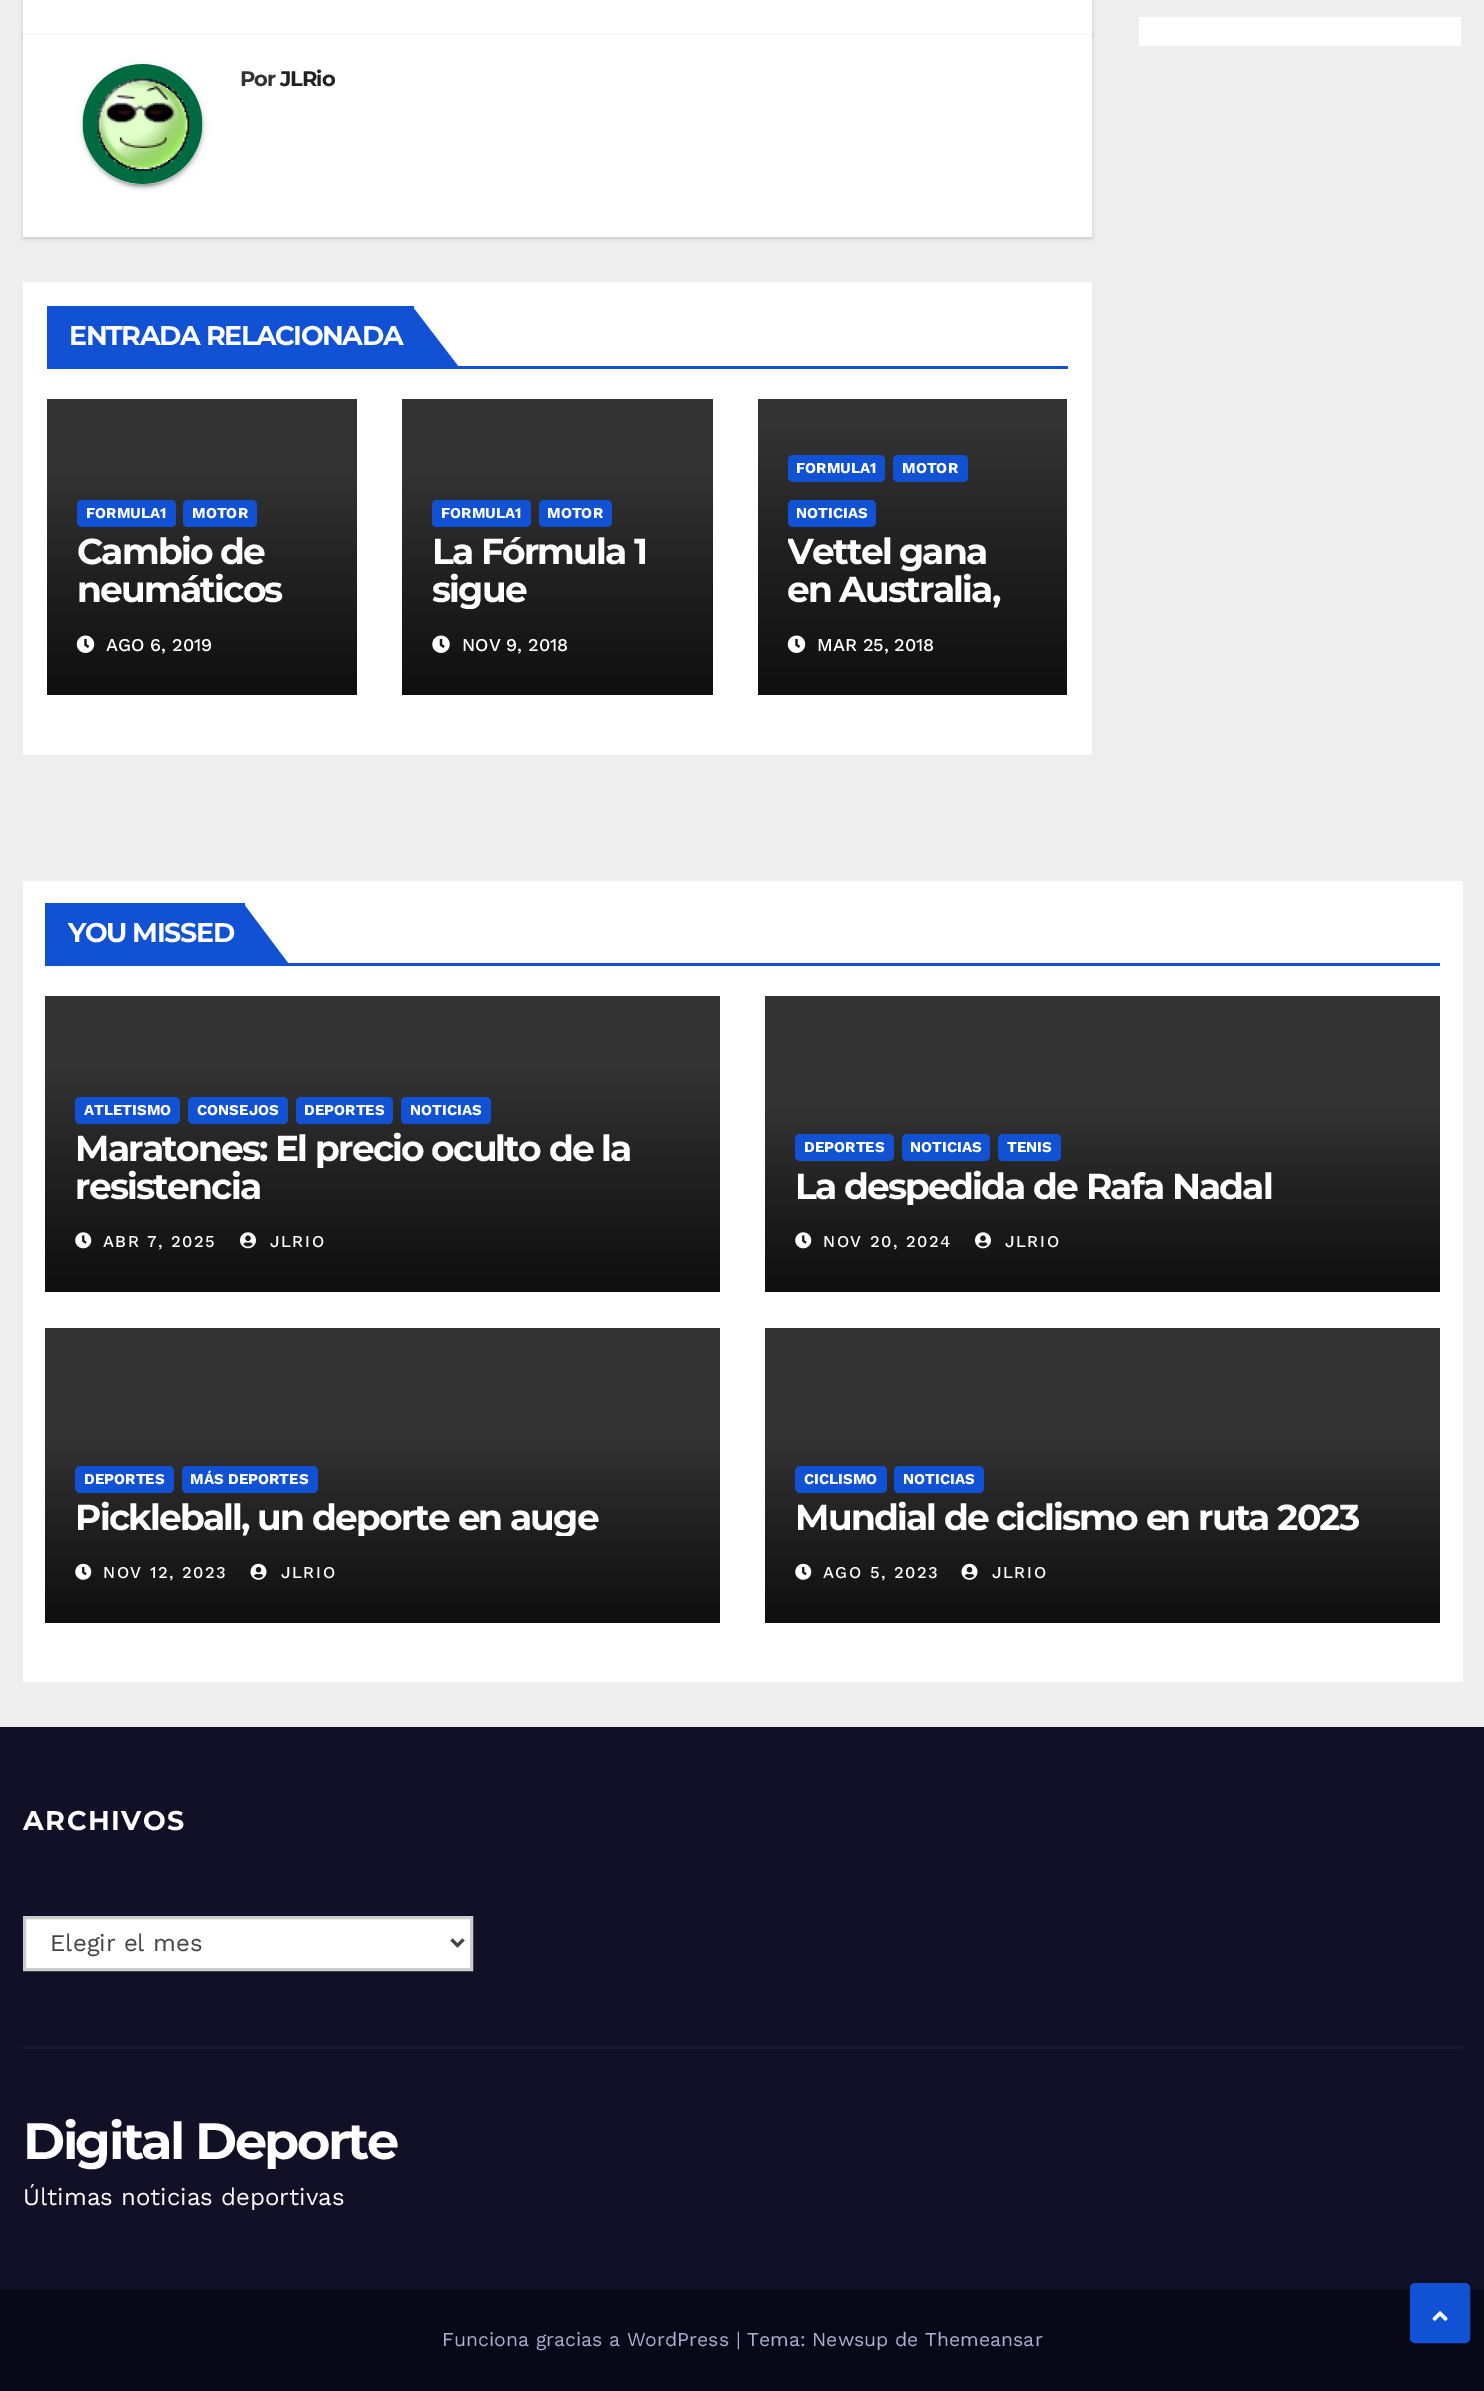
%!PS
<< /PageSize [1484 2391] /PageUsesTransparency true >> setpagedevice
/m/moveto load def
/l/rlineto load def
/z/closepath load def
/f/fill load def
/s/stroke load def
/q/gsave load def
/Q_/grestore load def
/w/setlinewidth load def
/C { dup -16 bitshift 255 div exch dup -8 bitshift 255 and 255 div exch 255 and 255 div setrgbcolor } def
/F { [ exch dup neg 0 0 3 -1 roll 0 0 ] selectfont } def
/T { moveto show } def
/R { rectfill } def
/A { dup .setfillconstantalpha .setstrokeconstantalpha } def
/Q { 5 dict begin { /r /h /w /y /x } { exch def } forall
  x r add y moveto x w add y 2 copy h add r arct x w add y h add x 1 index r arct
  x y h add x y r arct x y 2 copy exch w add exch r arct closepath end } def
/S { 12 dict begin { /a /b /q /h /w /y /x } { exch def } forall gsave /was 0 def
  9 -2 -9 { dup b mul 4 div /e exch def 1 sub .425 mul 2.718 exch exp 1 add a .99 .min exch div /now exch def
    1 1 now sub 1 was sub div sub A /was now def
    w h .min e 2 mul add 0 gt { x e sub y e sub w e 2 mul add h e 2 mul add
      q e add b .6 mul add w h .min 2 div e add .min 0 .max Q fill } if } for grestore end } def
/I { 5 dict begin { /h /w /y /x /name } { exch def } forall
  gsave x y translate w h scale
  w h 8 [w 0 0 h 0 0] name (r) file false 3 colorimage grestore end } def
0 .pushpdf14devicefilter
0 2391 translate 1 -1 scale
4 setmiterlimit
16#EEEEEE C
0 0 1484 2391 R
16#FFFFFF C
1139 17 322 29 R
16#000000 C
23 -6 1069 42 0 2 .15 S
16#FFFFFF C
23 0 1069 35 R
16#000000 C
23 36 1069 203 0 2 .15 S
16#FFFFFF C
23 35 1069 202 R
16#000000 C
83 66 120 120 60 4 .12 S
86 72 114 114 57 1 .2 S
83 68 120 120 60 1.5 .14 S
(1.rgb) 82 64 121 120 I
/Montserrat-Bold 21 F
16#333333 C
240 86 m -1 0 (Por) ashow
16#212121 C
280 86 m -1 0 (JLRio) ashow
16#FFFFFF C
23 282 1069 473 R
16#1151D3 C
47 366 1021 3 R
47 306 367 60 R
/Montserrat-Bold 27 F
16#FFFFFF C
69 345 m -1.4 0 (ENTRADA RELACIONADA) ashow
16#1151D3 C
412 366 m 0 -60 l 46 60 l z f
16#333333 C
47 399 310 74 R
q 47 473 m 310 0 l 0 222 l -310 0 l z clip newpath
<< /ShadingType 2 /ColorSpace /DeviceRGB /Coords [202 473 202 695] /Extend [true true] /Function << /FunctionType 3 /Domain [0 1] /Functions [<< /FunctionType 2 /Domain [0 1] /C0 [.2 .2 .2] /C1 [.122 .122 .122] /N 1 >> << /FunctionType 2 /Domain [0 1] /C0 [.122 .122 .122] /C1 [.059 .059 .059] /N 1 >>] /Bounds [.5] /Encode [0 1 0 1] >> >> shfill Q_
16#1151D3 C
77 500 99 27 5 Q f
/WorkSans-Bold 15 F
16#FFFFFF C
(FORMULA1) 86 518 T
16#1151D3 C
183 500 74 27 5 Q f
16#FFFFFF C
(MOTOR) 192 518 T
/Montserrat-Bold 36 F
77 564 m -1.8 0 (Cambio de) ashow
77 602 m -1.8 0 (neumáticos) ashow
(2.rgb) 76 635 19 18 I
/WorkSans-Medium 18 F
(AGO 6, 2019) 106 651 T
16#333333 C
402 399 311 74 R
q 402 473 m 311 0 l 0 222 l -311 0 l z clip newpath
<< /ShadingType 2 /ColorSpace /DeviceRGB /Coords [557 473 557 695] /Extend [true true] /Function << /FunctionType 3 /Domain [0 1] /Functions [<< /FunctionType 2 /Domain [0 1] /C0 [.2 .2 .2] /C1 [.122 .122 .122] /N 1 >> << /FunctionType 2 /Domain [0 1] /C0 [.122 .122 .122] /C1 [.059 .059 .059] /N 1 >>] /Bounds [.5] /Encode [0 1 0 1] >> >> shfill Q_
16#1151D3 C
432 500 99 27 5 Q f
/WorkSans-Bold 15 F
16#FFFFFF C
(FORMULA1) 441 518 T
16#1151D3 C
539 500 73 27 5 Q f
16#FFFFFF C
(MOTOR) 547 518 T
/Montserrat-Bold 36 F
432 564 m -1.8 0 (La Fórmula 1) ashow
q
432 533 251 76 rectclip
432 602 m -1.8 0 (sigue) ashow
Q_
(3.rgb) 432 635 18 18 I
/WorkSans-Medium 18 F
(NOV 9, 2018) 462 651 T
16#333333 C
758 399 309 29 R
q 758 428 m 309 0 l 0 267 l -309 0 l z clip newpath
<< /ShadingType 2 /ColorSpace /DeviceRGB /Coords [912 428 912 695] /Extend [true true] /Function << /FunctionType 3 /Domain [0 1] /Functions [<< /FunctionType 2 /Domain [0 1] /C0 [.2 .2 .2] /C1 [.122 .122 .122] /N 1 >> << /FunctionType 2 /Domain [0 1] /C0 [.122 .122 .122] /C1 [.059 .059 .059] /N 1 >>] /Bounds [.5] /Encode [0 1 0 1] >> >> shfill Q_
16#1151D3 C
788 455 97 27 5 Q f
/WorkSans-Bold 15 F
16#FFFFFF C
(FORMULA1) 796 473 T
16#1151D3 C
893 455 75 27 5 Q f
16#FFFFFF C
(MOTOR) 902 473 T
16#1151D3 C
788 500 88 27 5 Q f
16#FFFFFF C
(NOTICIAS) 796 518 T
q
788 533 249 76 rectclip
/Montserrat-Bold 36 F
787 564 m -1.8 0 (Vettel gana) ashow
Q_
/Montserrat-Bold 36 F
787 602 m -1.8 0 (en Australia,) ashow
(4.rgb) 787 635 19 18 I
/WorkSans-Medium 18 F
(MAR 25, 2018) 817 651 T
23 881 1440 801 R
16#1151D3 C
45 963 1395 3 R
45 903 200 60 R
/Montserrat-Bold 27 F
16#FFFFFF C
68 942 m -1.4 0 (YOU MISSED) ashow
16#1151D3 C
243 963 m 0 -60 l 45 60 l z f
16#333333 C
45 996 675 74 R
q 45 1070 m 675 0 l 0 222 l -675 0 l z clip newpath
<< /ShadingType 2 /ColorSpace /DeviceRGB /Coords [383 1070 383 1292] /Extend [true true] /Function << /FunctionType 3 /Domain [0 1] /Functions [<< /FunctionType 2 /Domain [0 1] /C0 [.2 .2 .2] /C1 [.122 .122 .122] /N 1 >> << /FunctionType 2 /Domain [0 1] /C0 [.122 .122 .122] /C1 [.059 .059 .059] /N 1 >>] /Bounds [.5] /Encode [0 1 0 1] >> >> shfill Q_
16#1151D3 C
75 1097 105 27 5 Q f
/WorkSans-Bold 15 F
16#FFFFFF C
(ATLETISMO) 84 1115 T
16#1151D3 C
188 1097 100 27 5 Q f
16#FFFFFF C
(CONSEJOS) 197 1115 T
16#1151D3 C
296 1097 97 27 5 Q f
16#FFFFFF C
(DEPORTES) 304 1115 T
16#1151D3 C
401 1097 90 27 5 Q f
16#FFFFFF C
(NOTICIAS) 410 1115 T
/Montserrat-Bold 36 F
75 1161 m -1.8 0 (Maratones: El precio oculto de la) ashow
75 1199 m -1.8 0 (resistencia) ashow
(5.rgb) 75 1232 17 17 I
/WorkSans-Medium 16.5 F
103 1247 m 1.5 0 (ABR 7, 2025) ashow
(6.rgb) 240 1232 16 17 I
270 1247 m 1.5 0 (JLRIO) ashow
16#333333 C
765 996 675 111 R
q 765 1107 m 675 0 l 0 185 l -675 0 l z clip newpath
<< /ShadingType 2 /ColorSpace /DeviceRGB /Coords [1103 1107 1103 1292] /Extend [true true] /Function << /FunctionType 3 /Domain [0 1] /Functions [<< /FunctionType 2 /Domain [0 1] /C0 [.2 .2 .2] /C1 [.122 .122 .122] /N 1 >> << /FunctionType 2 /Domain [0 1] /C0 [.122 .122 .122] /C1 [.059 .059 .059] /N 1 >>] /Bounds [.5] /Encode [0 1 0 1] >> >> shfill Q_
16#1151D3 C
795 1134 99 27 5 Q f
/WorkSans-Bold 15 F
16#FFFFFF C
(DEPORTES) 804 1152 T
16#1151D3 C
902 1134 88 27 5 Q f
16#FFFFFF C
(NOTICIAS) 910 1152 T
16#1151D3 C
998 1134 63 27 5 Q f
16#FFFFFF C
(TENIS) 1007 1152 T
q
795 1167 615 38 rectclip
/Montserrat-Bold 36 F
795 1199 m -1.8 0 (La despedida de Rafa Nadal) ashow
Q_
(7.rgb) 795 1232 17 17 I
/WorkSans-Medium 16.5 F
823 1247 m 1.5 0 (NOV 20, 2024) ashow
(8.rgb) 975 1232 16 17 I
1005 1247 m 1.5 0 (JLRIO) ashow
16#333333 C
45 1328 675 111 R
q 45 1439 m 675 0 l 0 184 l -675 0 l z clip newpath
<< /ShadingType 2 /ColorSpace /DeviceRGB /Coords [383 1439 383 1623] /Extend [true true] /Function << /FunctionType 3 /Domain [0 1] /Functions [<< /FunctionType 2 /Domain [0 1] /C0 [.2 .2 .2] /C1 [.122 .122 .122] /N 1 >> << /FunctionType 2 /Domain [0 1] /C0 [.122 .122 .122] /C1 [.059 .059 .059] /N 1 >>] /Bounds [.5] /Encode [0 1 0 1] >> >> shfill Q_
16#1151D3 C
75 1466 99 27 5 Q f
/WorkSans-Bold 15 F
16#FFFFFF C
(DEPORTES) 84 1484 T
16#1151D3 C
182 1466 136 27 5 Q f
16#FFFFFF C
(MÁS DEPORTES) 190 1484 T
q
75 1499 615 37 rectclip
/Montserrat-Bold 36 F
75 1530 m -1.8 0 (Pickleball, un deporte en auge) ashow
Q_
(9.rgb) 75 1563 17 17 I
/WorkSans-Medium 16.5 F
103 1578 m 1.5 0 (NOV 12, 2023) ashow
(10.rgb) 250 1563 17 17 I
281 1578 m 1.5 0 (JLRIO) ashow
16#333333 C
765 1328 675 111 R
q 765 1439 m 675 0 l 0 184 l -675 0 l z clip newpath
<< /ShadingType 2 /ColorSpace /DeviceRGB /Coords [1103 1439 1103 1623] /Extend [true true] /Function << /FunctionType 3 /Domain [0 1] /Functions [<< /FunctionType 2 /Domain [0 1] /C0 [.2 .2 .2] /C1 [.122 .122 .122] /N 1 >> << /FunctionType 2 /Domain [0 1] /C0 [.122 .122 .122] /C1 [.059 .059 .059] /N 1 >>] /Bounds [.5] /Encode [0 1 0 1] >> >> shfill Q_
16#1151D3 C
795 1466 92 27 5 Q f
/WorkSans-Bold 15 F
16#FFFFFF C
(CICLISMO) 804 1484 T
16#1151D3 C
894 1466 90 27 5 Q f
16#FFFFFF C
(NOTICIAS) 903 1484 T
/Montserrat-Bold 36 F
795 1530 m -1.8 0 (Mundial de ciclismo en ruta 2023) ashow
(9.rgb) 795 1563 17 17 I
/WorkSans-Medium 16.5 F
823 1578 m 1.5 0 (AGO 5, 2023) ashow
(10.rgb) 961 1563 17 17 I
992 1578 m 1.5 0 (JLRIO) ashow
16#121026 C
0 1727 1484 562 R
/Montserrat-Bold 27 F
16#FFFFFF C
23 1830 m 1.5 0 (ARCHIVOS) ashow
24.5 1917.5 m 447 0 l 0 52 l -447 0 l z q f Q_
16#CCCCCC C
3 w
s
16#444444 C
451.5 1939.5 m 6 6 l 6 -6 l s
/WorkSans-Regular 24 F
(Elegir el mes) 50 1951 T
16#1A182E C
23 2046 1440 3 R
/Montserrat-Bold 51 F
16#FFFFFF C
23 2159 m -2.5 0 (Digital Deporte) ashow
/WorkSans-Regular 24 F
(Últimas noticias deportivas) 23 2205 T
16#090818 C
0 2289 1484 102 R
/WorkSans-Regular 19.5 F
16#AAAED1 C
(Funciona gracias a WordPress | Tema: Newsup de Themeansar) 442 2346 T
16#1151D3 C
1411.5 2284.5 57 57 3.5 Q q f Q_
s
(11.rgb) 1432 2311 16 10 I
.poppdf14devicefilter showpage
